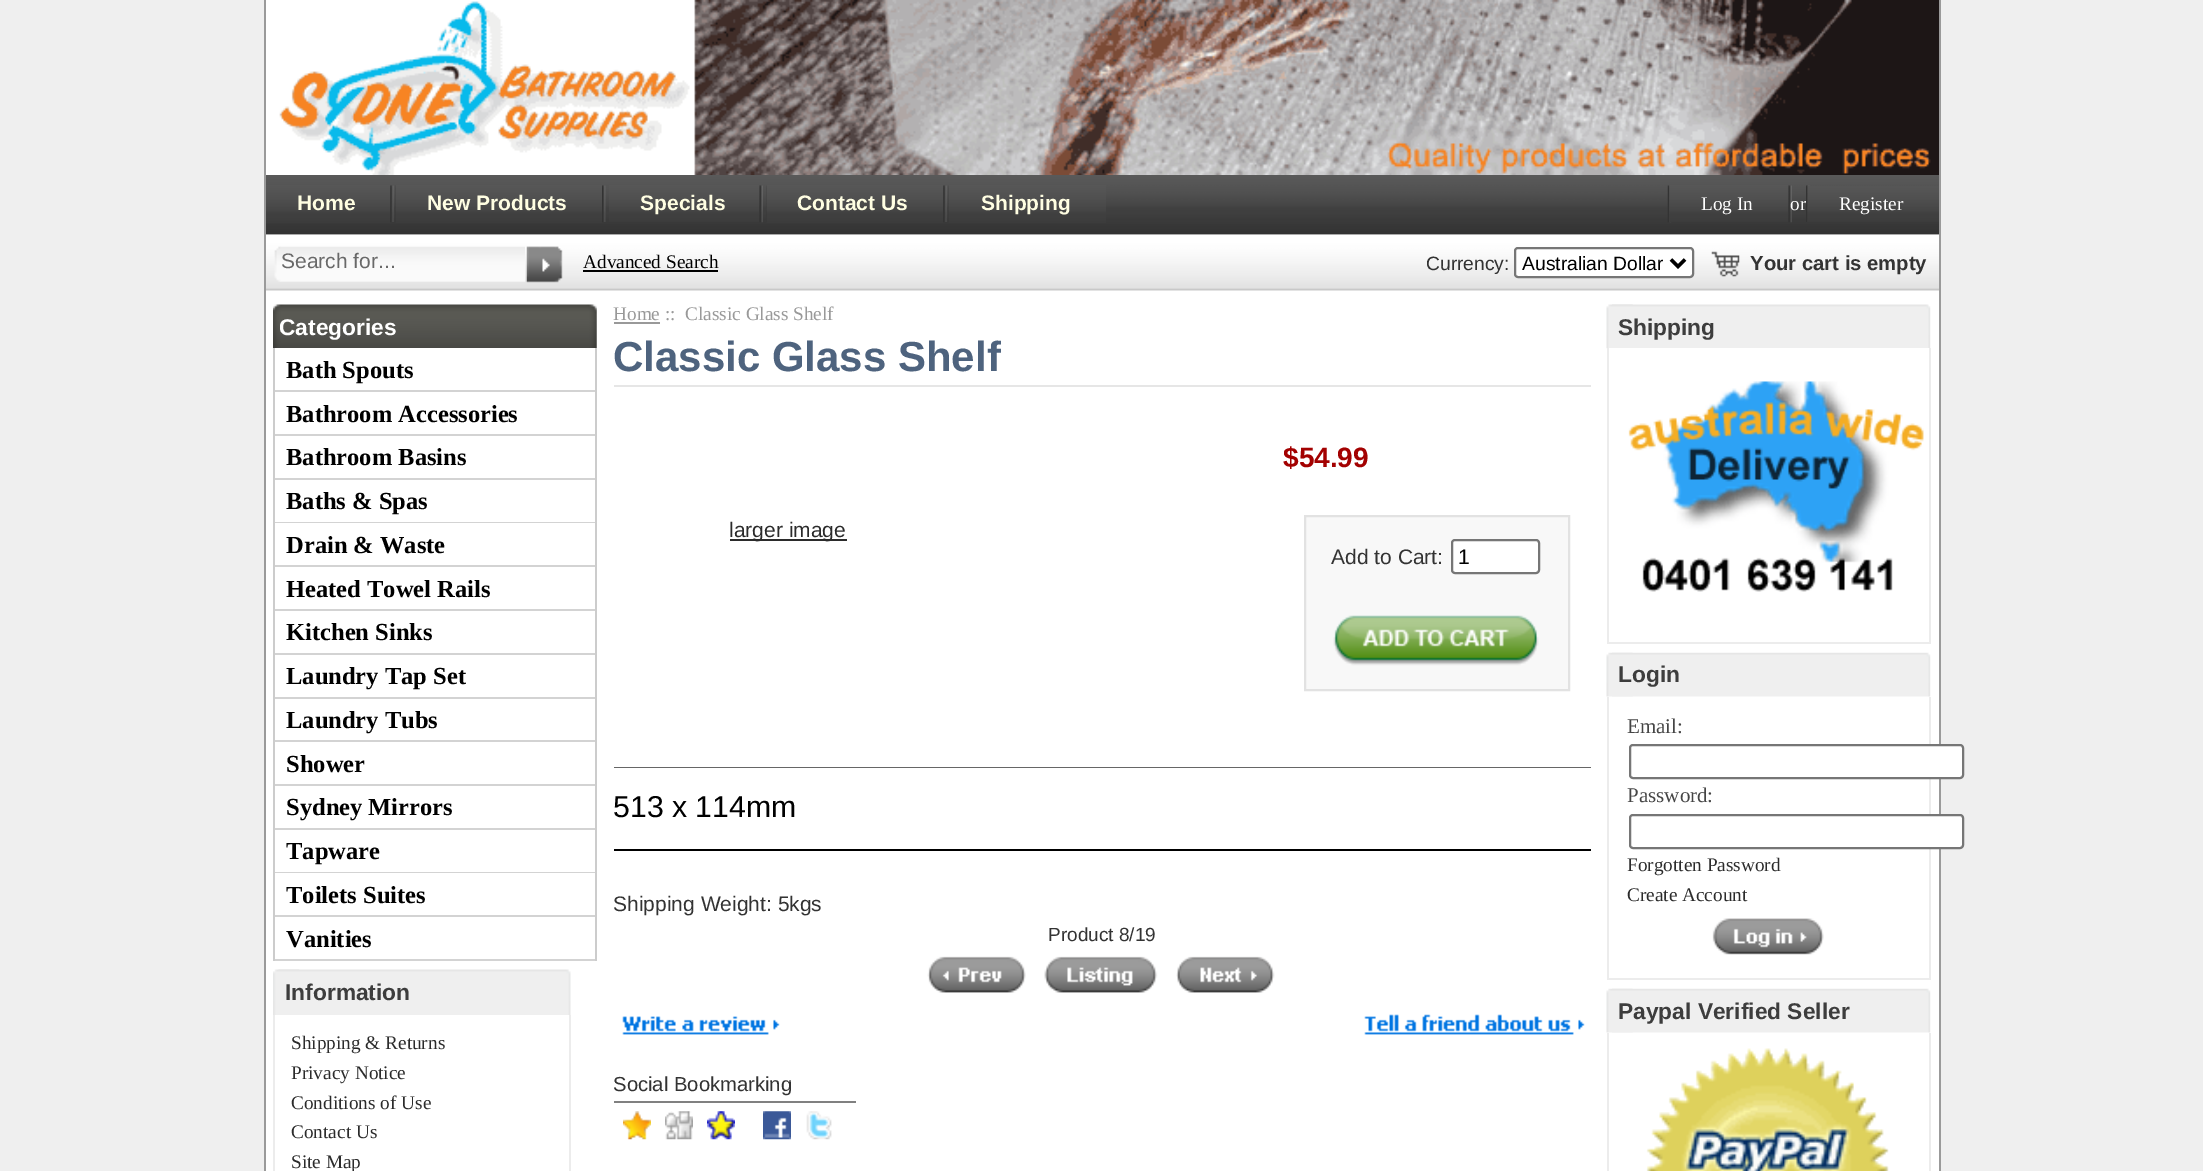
%!PS
<< /PageSize [2203 1171] >> setpagedevice
/m/moveto load def
/l/rlineto load def
/z/closepath load def
/f/fill load def
/s/stroke load def
/q/gsave load def
/Q_/grestore load def
/w/setlinewidth load def
/C { dup -16 bitshift 255 div exch dup -8 bitshift 255 and 255 div exch 255 and 255 div setrgbcolor } def
/F { [ exch dup neg 0 0 3 -1 roll 0 0 ] selectfont } def
/T { moveto show } def
/R { rectfill } def
/Q { 5 dict begin { /r /h /w /y /x } { exch def } forall
  x r add y moveto x w add y 2 copy h add r arct x w add y h add x 1 index r arct
  x y h add x y r arct x y 2 copy exch w add exch r arct closepath end } def
/I { 5 dict begin { /h /w /y /x /name } { exch def } forall
  gsave x y translate w h scale
  w h 8 [w 0 0 h 0 0] name (r) file false 3 colorimage grestore end } def
0 1171 translate 1 -1 scale
4 setmiterlimit
16#EFEFEF C
0 0 2203 1171 R
16#FFFFFF C
266 0 1673 1171 R
16#9A9A9A C
1939 0 2 1171 R
264 0 2 1171 R
(1.rgb) 279 0 1660 175 I
(2.rgb) 266 175 1673 60 I
(3.rgb) 266 185 124 38 I
/LiberationSans-Bold 21 F
16#FFFEE2 C
(Home) 297 210 T
(4.rgb) 390 185 4 37 I
(5.rgb) 395 185 1 38 I
(6.rgb) 395 185 207 38 I
(New Products) 427 210 T
(7.rgb) 602 185 4 37 I
(8.rgb) 609 185 150 37 I
(Specials) 640 210 T
(9.rgb) 759 185 4 38 I
(10.rgb) 766 185 1 38 I
(11.rgb) 766 185 177 38 I
(Contact Us) 797 210 T
(4.rgb) 943 185 4 37 I
(10.rgb) 948 185 1 38 I
(12.rgb) 948 185 158 38 I
(Shipping) 981 210 T
(13.rgb) 1667 185 5 38 I
(14.rgb) 1669 185 119 37 I
/LiberationSerif-Regular 19.25 F
16#FFFFFF C
(Log In) 1701 210 T
(15.rgb) 1788 185 4 38 I
(or) 1790 210 T
(16.rgb) 1806 185 4 37 I
(17.rgb) 1807 186 132 36 I
(Register) 1839 210 T
(18.rgb) 266 234 1673 57 I
(19.rgb) 274 246 251 36 I
/LiberationSans-Regular 21 F
16#696969 C
(Search for...) 281 268 T
(20.rgb) 526 246 37 37 I
/LiberationSerif-Regular 19.25 F
16#000000 C
(Advanced Search) 583 268 T
583 270 135 2 R
/LiberationSans-Regular 19.25 F
16#333333 C
(Currency:) 1426 270 T
16#FFFFFF C
1515 248 178 29 3 Q q f Q_
16#767676 C
2 w
s
16#000000 C
3.5 w
1671 259.5 m 7 7 l 7 -7 l s
(Australian Dollar) 1522 270 T
(21.rgb) 1711 251 29 26 I
/LiberationSans-Bold 20.25 F
16#333333 C
(Your cart is empty) 1750 270 T
(22.rgb) 273 304 324 44 I
/LiberationSans-Bold 22.75 F
16#FFFFFF C
(Categories) 279 335 T
16#CCCCCC C
595 348 2 613 R
273 348 2 613 R
16#D3D3D3 C
275 390 320 2 R
/LiberationSerif-Bold 24.5 F
16#000000 C
(Bath Spouts) 286 378 T
16#D3D3D3 C
275 434 320 2 R
16#000000 C
(Bathroom Accessories) 286 422 T
16#D3D3D3 C
275 478 320 2 R
16#000000 C
(Bathroom Basins) 286 465 T
16#D3D3D3 C
275 522 320 1 R
16#000000 C
(Baths & Spas) 286 509 T
16#D3D3D3 C
275 565 320 2 R
16#000000 C
(Drain & Waste) 286 553 T
16#D3D3D3 C
275 609 320 2 R
16#000000 C
(Heated Towel Rails) 286 597 T
16#D3D3D3 C
275 653 320 2 R
16#000000 C
(Kitchen Sinks) 286 640 T
16#D3D3D3 C
275 697 320 2 R
16#000000 C
(Laundry Tap Set) 286 684 T
16#D3D3D3 C
275 740 320 2 R
16#000000 C
(Laundry Tubs) 286 728 T
16#D3D3D3 C
275 784 320 2 R
16#000000 C
(Shower) 286 772 T
16#D3D3D3 C
275 828 320 2 R
16#000000 C
(Sydney Mirrors) 286 815 T
16#D3D3D3 C
275 872 320 1 R
16#000000 C
(Tapware) 286 859 T
16#D3D3D3 C
275 915 320 2 R
16#000000 C
(Toilets Suites) 286 903 T
16#D3D3D3 C
275 959 320 2 R
16#000000 C
(Vanities) 286 947 T
(23.rgb) 273 969 27 46 I
(24.rgb) 278 969 293 46 I
/LiberationSans-Bold 22.75 F
16#3D3D3D C
(Information) 285 1000 T
16#ECECEC C
569 1015 2 156 R
273 1015 2 156 R
/LiberationSerif-Regular 19.25 F
16#2B2B2B C
(Shipping & Returns) 291 1049 T
(Privacy Notice) 291 1079 T
(Conditions of Use) 291 1109 T
(Contact Us) 291 1138 T
(Site Map) 291 1168 T
16#999999 C
(Home ::  Classic Glass Shelf) 613 320 T
614 322 46 2 R
16#E6E6E6 C
614 385 977 2 R
/LiberationSans-Bold 42 F
16#4E637E C
(Classic Glass Shelf) 613 371 T
16#2B2B2B C
730 539 117 2 R
/LiberationSans-Regular 21 F
(larger image) 729 537 T
/LiberationSans-Bold 28 F
16#A30101 C
($54.99) 1283 467 T
16#F8F8F8 C
1305 516 m 264 0 l 0 174 l -264 0 l z q f Q_
16#E2E2E2 C
2 w
s
/LiberationSans-Regular 21 F
16#333333 C
(Add to Cart:) 1331 564 T
16#FFFFFF C
1452 540 87 33 3 Q q f Q_
16#767676 C
s
16#000000 C
(1) 1458 564 T
(25.rgb) 1333 615 206 51 I
16#666666 C
614 767 977 1 R
16#000000 C
614 849 977 2 R
/LiberationSans-Regular 30.25 F
(513 x 114mm) 613 817 T
/LiberationSans-Regular 21 F
16#333333 C
(Shipping Weight: 5kgs) 613 911 T
/LiberationSans-Regular 19 F
(Product 8/19) 1048 941 T
(26.rgb) 927 956 99 37 I
(27.rgb) 1044 956 114 37 I
(28.rgb) 1176 956 99 37 I
(29.rgb) 622 1016 158 19 I
(30.rgb) 1364 1014 221 21 I
/LiberationSans-Regular 20.25 F
(Social Bookmarking) 613 1091 T
16#808080 C
614 1101 242 2 R
(31.rgb) 623 1111 28 29 I
(32.rgb) 665 1111 28 29 I
(33.rgb) 707 1111 28 29 I
(34.rgb) 763 1111 28 29 I
(35.rgb) 806 1111 26 29 I
(36.rgb) 1606 304 27 45 I
(37.rgb) 1612 304 319 44 I
/LiberationSans-Bold 22.75 F
16#3D3D3D C
(Shipping) 1618 335 T
16#FFFFFF C
1609 348 24 1 R
16#ECECEC C
1929 348 2 296 R
1607 642 323 2 R
1607 348 2 296 R
(38.rgb) 1628 381 296 211 I
(39.rgb) 1606 652 27 45 I
(40.rgb) 1612 652 319 45 I
16#3D3D3D C
(Login) 1618 682 T
16#ECECEC C
1929 697 2 283 R
1607 978 323 2 R
1607 697 2 283 R
/LiberationSerif-Regular 21 F
16#454545 C
(Email:) 1627 733 T
16#FFFFFF C
1630 745 333 33 3 Q q f Q_
16#767676 C
s
16#454545 C
(Password:) 1627 802 T
16#FFFFFF C
1630 815 333 33 3 Q q f Q_
16#767676 C
s
/LiberationSerif-Regular 19.25 F
16#2B2B2B C
(Forgotten Password) 1627 871 T
(Create Account) 1627 901 T
(41.rgb) 1712 918 112 37 I
(39.rgb) 1606 988 27 45 I
(40.rgb) 1612 988 319 45 I
/LiberationSans-Bold 22.75 F
16#3D3D3D C
(Paypal Verified Seller) 1618 1019 T
16#ECECEC C
1929 1033 2 138 R
1607 1033 2 138 R
(42.rgb) 1646 1048 243 123 I
showpage
